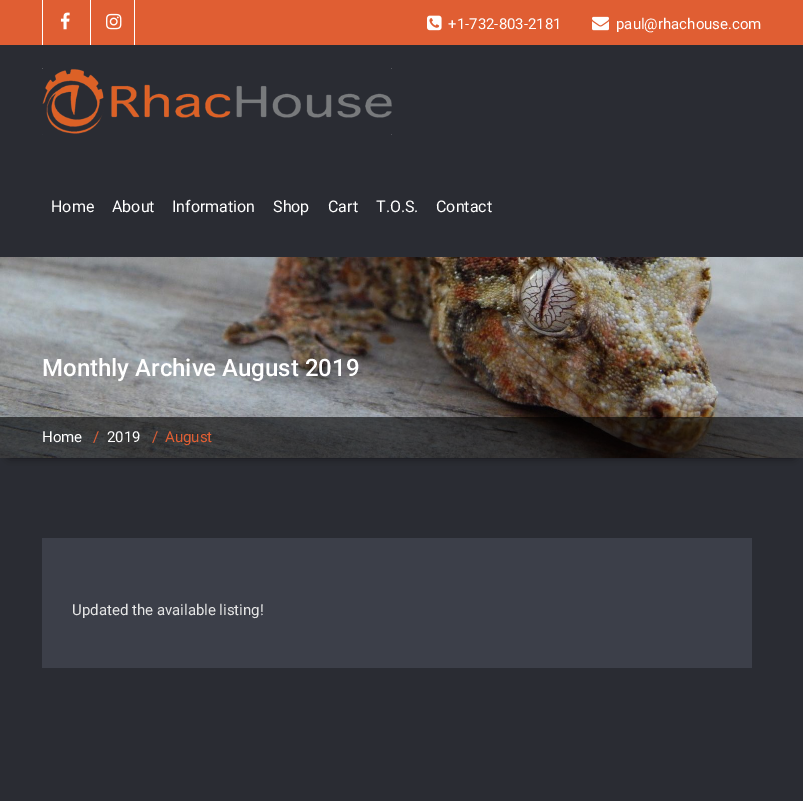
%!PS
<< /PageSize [803 801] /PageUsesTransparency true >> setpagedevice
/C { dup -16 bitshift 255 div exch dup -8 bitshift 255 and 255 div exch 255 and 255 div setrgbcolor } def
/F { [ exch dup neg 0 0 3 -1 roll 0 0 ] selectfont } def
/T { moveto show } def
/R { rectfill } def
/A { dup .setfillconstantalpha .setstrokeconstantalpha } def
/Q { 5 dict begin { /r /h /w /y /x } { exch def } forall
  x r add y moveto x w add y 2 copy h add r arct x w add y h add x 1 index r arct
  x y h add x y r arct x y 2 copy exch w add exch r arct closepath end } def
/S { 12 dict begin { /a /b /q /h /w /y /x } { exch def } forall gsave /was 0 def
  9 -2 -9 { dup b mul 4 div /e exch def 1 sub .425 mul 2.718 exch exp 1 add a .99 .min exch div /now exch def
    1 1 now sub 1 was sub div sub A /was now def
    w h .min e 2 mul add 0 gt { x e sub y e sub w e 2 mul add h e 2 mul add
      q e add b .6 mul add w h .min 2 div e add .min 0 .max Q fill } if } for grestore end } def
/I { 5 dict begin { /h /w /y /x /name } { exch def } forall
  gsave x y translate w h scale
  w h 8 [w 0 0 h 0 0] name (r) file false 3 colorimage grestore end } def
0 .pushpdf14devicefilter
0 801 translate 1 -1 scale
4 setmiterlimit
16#2A2C33 C
0 0 803 801 R
16#E05E33 C
0 0 803 45 R
16#FFFFFF C
42 0 1 45 R
(1.rgb) 60 12 10 18 I
134 0 1 45 R
90 0 1 45 R
(2.rgb) 106 13 16 17 I
(3.rgb) 427 15 15 16 I
/Roboto-Regular 15 F
(+1-732-803-2181) 448 29 T
(4.rgb) 592 16 17 15 I
(paul@rhachouse.com) 616 29 T
(5.rgb) 42 68 350 67 I
/Roboto-Regular 16 F
(Home) 51 212 T
(About) 112 212 T
(Information) 172 212 T
(Shop) 273 212 T
(Cart) 328 212 T
(T.O.S.) 376 212 T
(Contact) 436 212 T
16#000000 C
10 274 783 181 0 5 1 S
(6.rgb) 0 257 803 201 I
/Roboto-Medium 24 F
16#FFFFFF C
(Monthly Archive August 2019) 42 376 T
0.6 A
16#000000 C
0 417 803 41 R
/Roboto-Regular 15 F
1 A
16#FFFFFF C
(Home) 42 442 T
16#E05E33 C
(/) 93 442 T
16#FFFFFF C
(2019) 107 442 T
16#E05E33 C
(/) 152 442 T
(August) 165 442 T
16#3C3F49 C
42 538 710 130 R
16#E5E5E5 C
(Updated the available listing!) 72 615 T
.poppdf14devicefilter showpage
